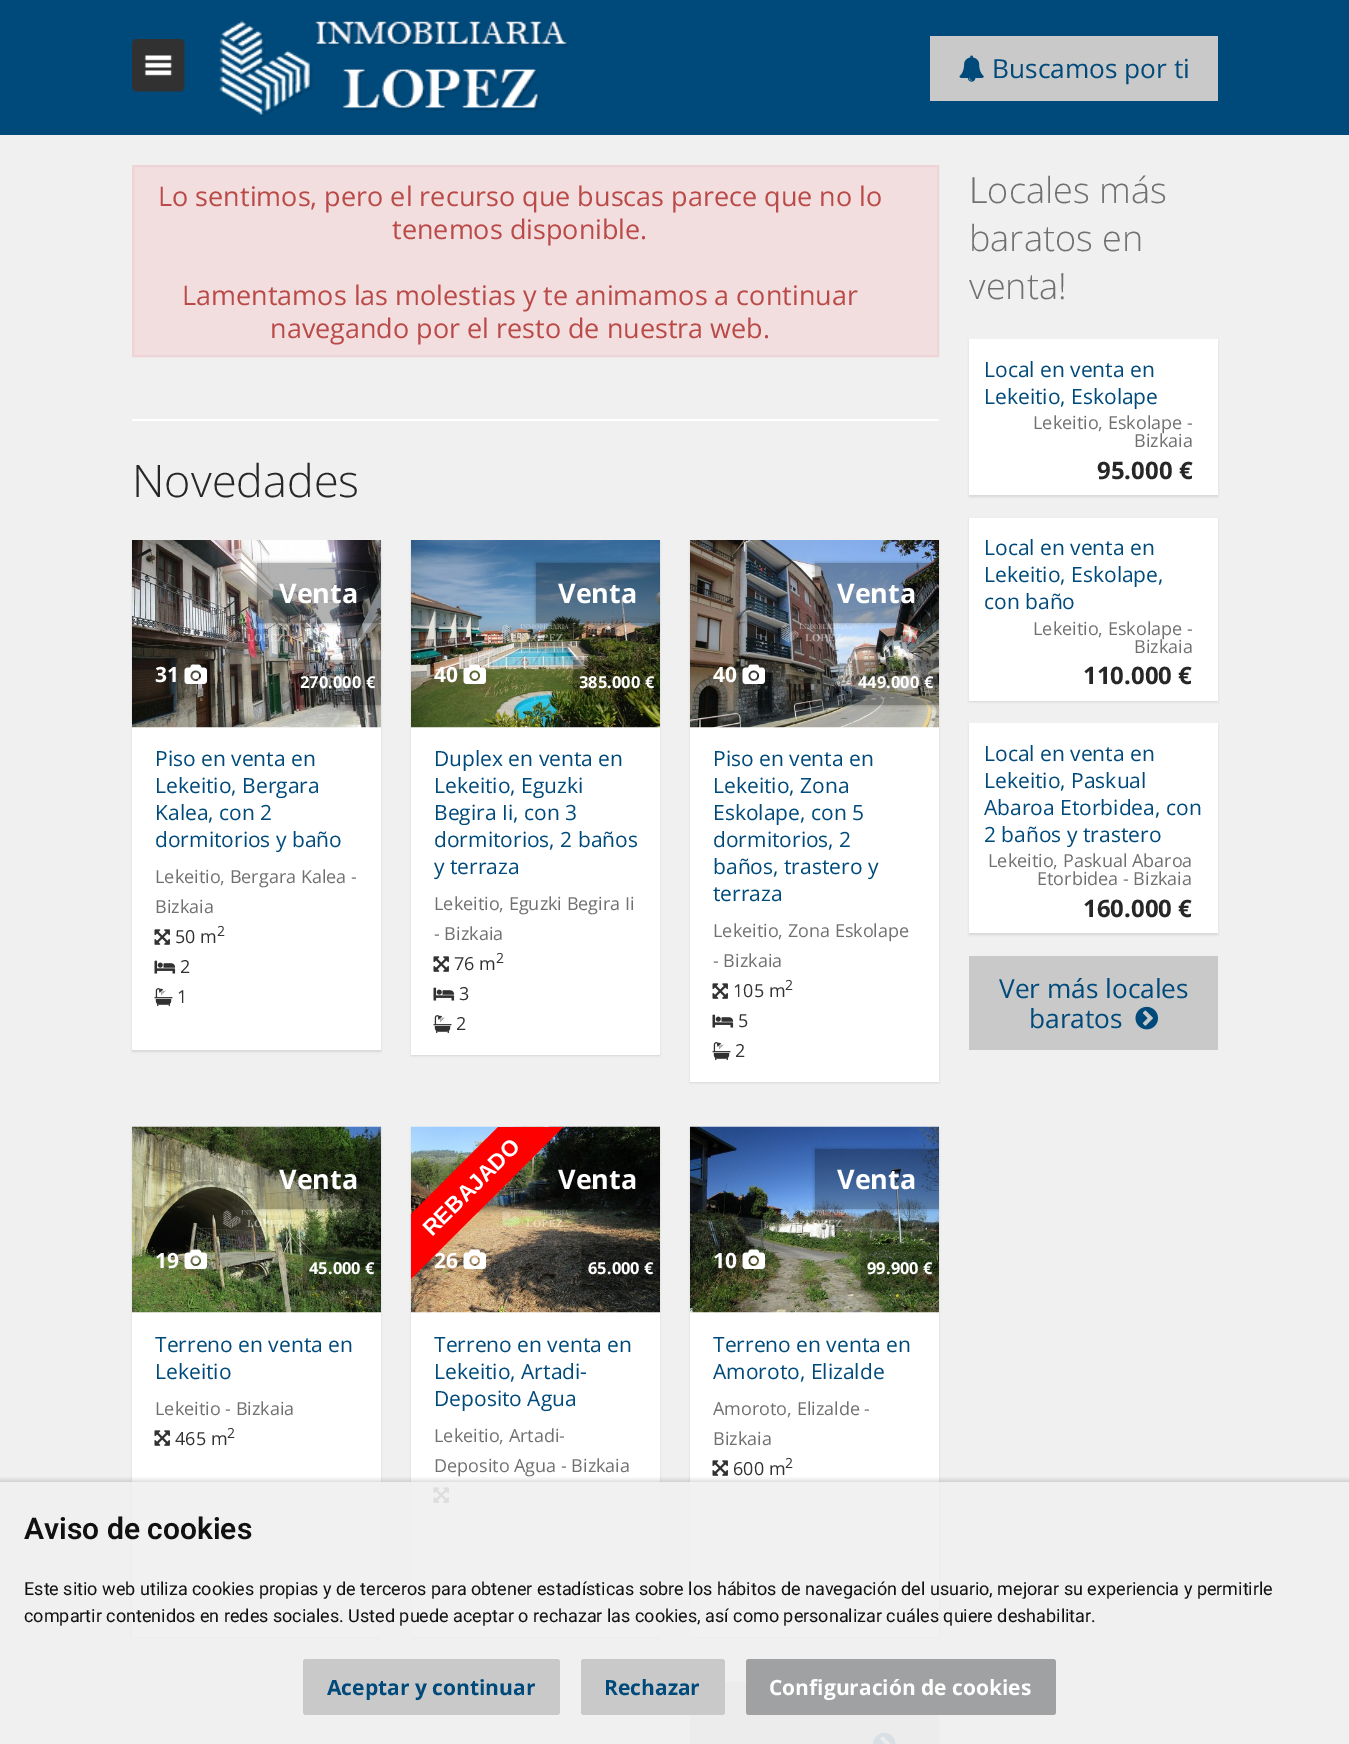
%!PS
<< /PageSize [1349 1744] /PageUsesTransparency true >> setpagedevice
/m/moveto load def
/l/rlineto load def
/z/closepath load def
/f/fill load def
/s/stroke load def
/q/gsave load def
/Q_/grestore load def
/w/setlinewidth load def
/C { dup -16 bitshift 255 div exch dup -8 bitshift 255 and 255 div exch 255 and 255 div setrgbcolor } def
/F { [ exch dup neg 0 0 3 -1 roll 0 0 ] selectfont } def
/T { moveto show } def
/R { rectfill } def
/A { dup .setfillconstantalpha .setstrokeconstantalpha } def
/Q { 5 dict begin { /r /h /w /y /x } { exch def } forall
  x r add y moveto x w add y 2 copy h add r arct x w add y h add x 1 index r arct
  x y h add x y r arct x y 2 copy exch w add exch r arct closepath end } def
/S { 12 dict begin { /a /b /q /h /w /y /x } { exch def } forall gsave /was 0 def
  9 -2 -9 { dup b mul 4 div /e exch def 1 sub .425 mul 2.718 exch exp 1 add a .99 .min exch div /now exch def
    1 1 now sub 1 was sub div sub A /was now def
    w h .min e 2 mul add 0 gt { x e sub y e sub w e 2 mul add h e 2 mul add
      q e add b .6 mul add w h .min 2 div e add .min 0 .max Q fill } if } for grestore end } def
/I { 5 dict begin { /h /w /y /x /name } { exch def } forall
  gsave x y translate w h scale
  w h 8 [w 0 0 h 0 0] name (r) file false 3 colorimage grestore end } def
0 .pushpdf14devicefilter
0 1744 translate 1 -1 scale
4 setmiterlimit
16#F0F0F0 C
0 0 1349 1744 R
16#004A7B C
0 0 1349 135 R
(1.rgb) 132 39 53 53 I
(2.rgb) 219 20 349 97 I
16#C9C9C9 C
930 36 288 65 R
(3.rgb) 959 55 25 27 I
/OpenSans-Regular 26.25 F
16#004A7B C
(Buscamos por ti) 992 78 T
16#F2DEDE C
133 166 m 805 0 l 0 190 l -805 0 l z q f Q_
16#EED3D7 C
2 w
s
/OpenSans-Regular 27 F
16#B94A48 C
(Lo sentimos, pero el recurso que buscas parece que no lo) 158 206 T
(tenemos disponible.) 392 239 T
(Lamentamos las molestias y te animamos a continuar) 182 305 T
(navegando por el resto de nuestra web.) 270 338 T
16#FFFFFF C
132 419 807 2 R
/OpenSans-Light 45 F
16#272727 C
(Novedades) 132 497 T
16#000000 C
132 542 249 510 0 1 .1 S
16#FFFFFF C
132 727 249 323 R
(4.rgb) 132 540 249 188 I
q
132 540 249 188 rectclip
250 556 m 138 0 l 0 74 l -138 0 l z 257 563 m 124 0 l 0 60 l -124 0 l z eoclip newpath
16#000000 C
257 563 124 60 0 2 .3 S
Q_
0.3 A
16#000000 C
257 563 124 60 R
/OpenSans-Bold 27 F
1 A
16#FFFFFF C
(Venta) 279 603 T
/OpenSans-Bold 21 F
(31) 155 682 T
(5.rgb) 184 664 23 20 I
q
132 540 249 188 rectclip
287 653 m 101 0 l 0 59 l -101 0 l z 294 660 m 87 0 l 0 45 l -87 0 l z eoclip newpath
16#000000 C
294 660 87 45 0 2 .3 S
Q_
0.3 A
16#000000 C
294 660 87 45 R
/OpenSans-Bold 16.5 F
1 A
16#FFFFFF C
(270.000 €) 300 688 T
/OpenSans-Regular 21 F
16#004A7B C
(Piso en venta en) 155 766 T
(Lekeitio, Bergara) 155 793 T
(Kalea, con 2) 155 820 T
(dormitorios y baño) 155 847 T
/OpenSans-Regular 18 F
16#707070 C
(Lekeitio, Bergara Kalea -) 155 883 T
(Bizkaia) 155 913 T
(6.rgb) 154 929 16 16 I
16#313131 C
(50 m) 175 943 T
/OpenSans-Regular 14 F
(2) 217 936 T
(7.rgb) 154 960 22 14 I
/OpenSans-Regular 18 F
(2) 180 973 T
(8.rgb) 154 988 19 19 I
(1) 177 1003 T
16#000000 C
411 542 249 514 0 1 .1 S
16#FFFFFF C
411 727 249 328 R
(9.rgb) 411 540 249 188 I
q
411 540 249 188 rectclip
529 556 m 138 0 l 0 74 l -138 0 l z 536 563 m 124 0 l 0 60 l -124 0 l z eoclip newpath
16#000000 C
536 563 124 60 0 2 .3 S
Q_
0.3 A
16#000000 C
536 563 124 60 R
/OpenSans-Bold 27 F
1 A
16#FFFFFF C
(Venta) 558 603 T
/OpenSans-Bold 21 F
(40) 434 682 T
(10.rgb) 463 664 23 20 I
q
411 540 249 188 rectclip
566 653 m 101 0 l 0 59 l -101 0 l z 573 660 m 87 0 l 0 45 l -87 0 l z eoclip newpath
16#000000 C
573 660 87 45 0 2 .3 S
Q_
0.3 A
16#000000 C
573 660 87 45 R
/OpenSans-Bold 16.5 F
1 A
16#FFFFFF C
(385.000 €) 579 688 T
/OpenSans-Regular 21 F
16#004A7B C
(Duplex en venta en) 434 766 T
(Lekeitio, Eguzki) 434 793 T
(Begira Ii, con 3) 434 820 T
(dormitorios, 2 baños) 434 847 T
(y terraza) 434 874 T
/OpenSans-Regular 18 F
16#707070 C
(Lekeitio, Eguzki Begira Ii) 434 910 T
(- Bizkaia) 434 940 T
(6.rgb) 433 956 16 16 I
16#313131 C
(76 m) 454 970 T
/OpenSans-Regular 14 F
(2) 496 963 T
(7.rgb) 433 987 22 14 I
/OpenSans-Regular 18 F
(3) 459 1000 T
(8.rgb) 433 1015 19 19 I
(2) 456 1030 T
16#000000 C
690 542 249 541 0 1 .1 S
16#FFFFFF C
690 727 249 355 R
(11.rgb) 690 540 249 188 I
q
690 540 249 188 rectclip
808 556 m 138 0 l 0 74 l -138 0 l z 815 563 m 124 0 l 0 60 l -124 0 l z eoclip newpath
16#000000 C
815 563 124 60 0 2 .3 S
Q_
0.3 A
16#000000 C
815 563 124 60 R
/OpenSans-Bold 27 F
1 A
16#FFFFFF C
(Venta) 837 603 T
/OpenSans-Bold 21 F
(40) 713 682 T
(12.rgb) 742 664 23 20 I
q
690 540 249 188 rectclip
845 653 m 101 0 l 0 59 l -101 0 l z 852 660 m 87 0 l 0 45 l -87 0 l z eoclip newpath
16#000000 C
852 660 87 45 0 2 .3 S
Q_
0.3 A
16#000000 C
852 660 87 45 R
/OpenSans-Bold 16.5 F
1 A
16#FFFFFF C
(449.000 €) 858 688 T
/OpenSans-Regular 21 F
16#004A7B C
(Piso en venta en) 713 766 T
(Lekeitio, Zona) 713 793 T
(Eskolape, con 5) 713 820 T
(dormitorios, 2) 713 847 T
(baños, trastero y) 713 874 T
(terraza) 713 901 T
/OpenSans-Regular 18 F
16#707070 C
(Lekeitio, Zona Eskolape) 713 937 T
(- Bizkaia) 713 967 T
(6.rgb) 712 983 16 16 I
16#313131 C
(105 m) 733 997 T
/OpenSans-Regular 14 F
(2) 785 990 T
(7.rgb) 712 1014 22 14 I
/OpenSans-Regular 18 F
(5) 738 1027 T
(8.rgb) 712 1042 19 19 I
(2) 735 1057 T
16#000000 C
132 1128 249 510 0 1 .1 S
16#FFFFFF C
132 1312 249 325 R
(13.rgb) 132 1126 249 187 I
q
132 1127 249 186 rectclip
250 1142 m 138 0 l 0 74 l -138 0 l z 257 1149 m 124 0 l 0 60 l -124 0 l z eoclip newpath
16#000000 C
257 1149 124 60 0 2 .3 S
Q_
0.3 A
16#000000 C
257 1149 124 60 R
/OpenSans-Bold 27 F
1 A
16#FFFFFF C
(Venta) 279 1189 T
/OpenSans-Bold 21 F
(19) 155 1268 T
(14.rgb) 184 1249 23 20 I
q
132 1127 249 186 rectclip
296 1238 m 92 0 l 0 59 l -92 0 l z 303 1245 m 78 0 l 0 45 l -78 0 l z eoclip newpath
16#000000 C
303 1245 78 45 0 2 .3 S
Q_
0.3 A
16#000000 C
303 1245 78 45 R
/OpenSans-Bold 16.5 F
1 A
16#FFFFFF C
(45.000 €) 309 1274 T
/OpenSans-Regular 21 F
16#004A7B C
(Terreno en venta en) 155 1352 T
(Lekeitio) 155 1379 T
/OpenSans-Regular 18 F
16#707070 C
(Lekeitio - Bizkaia) 155 1415 T
(6.rgb) 154 1430 16 16 I
16#313131 C
(465 m) 175 1445 T
/OpenSans-Regular 14 F
(2) 227 1438 T
16#000000 C
411 1128 249 510 0 1 .1 S
16#FFFFFF C
411 1312 249 325 R
(15.rgb) 411 1126 249 187 I
q
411 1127 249 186 rectclip
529 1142 m 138 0 l 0 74 l -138 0 l z 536 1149 m 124 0 l 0 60 l -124 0 l z eoclip newpath
16#000000 C
536 1149 124 60 0 2 .3 S
Q_
0.3 A
16#000000 C
536 1149 124 60 R
q
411 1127 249 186 rectclip
1 A
336 1164 270 47 0 2.5 .3 S
Q_
/OpenSans-Bold 27 F
1 A
16#FFFFFF C
(Venta) 558 1189 T
/OpenSans-Bold 21 F
(26) 434 1268 T
(16.rgb) 463 1249 23 20 I
q
411 1127 249 186 rectclip
16#FF0000 C
359 1266 m 191 -191 l 33 32 l -191 191 l z f
Q_
/LiberationSans-Bold 22.5 F
q 432 1237 translate -45 rotate 0 0 m (REBAJADO) show Q_
q
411 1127 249 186 rectclip
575 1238 m 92 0 l 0 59 l -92 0 l z 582 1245 m 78 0 l 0 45 l -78 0 l z eoclip newpath
16#000000 C
582 1245 78 45 0 2 .3 S
Q_
0.3 A
16#000000 C
582 1245 78 45 R
/OpenSans-Bold 16.5 F
1 A
16#FFFFFF C
(65.000 €) 588 1274 T
/OpenSans-Regular 21 F
16#004A7B C
(Terreno en venta en) 434 1352 T
(Lekeitio, Artadi-) 434 1379 T
(Deposito Agua) 434 1406 T
/OpenSans-Regular 18 F
16#707070 C
(Lekeitio, Artadi-) 434 1442 T
(Deposito Agua - Bizkaia) 434 1472 T
(6.rgb) 433 1487 16 16 I
16#000000 C
690 1128 249 510 0 1 .1 S
16#FFFFFF C
690 1312 249 325 R
(17.rgb) 690 1126 249 187 I
q
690 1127 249 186 rectclip
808 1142 m 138 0 l 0 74 l -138 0 l z 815 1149 m 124 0 l 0 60 l -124 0 l z eoclip newpath
16#000000 C
815 1149 124 60 0 2 .3 S
Q_
0.3 A
16#000000 C
815 1149 124 60 R
/OpenSans-Bold 27 F
1 A
16#FFFFFF C
(Venta) 837 1189 T
/OpenSans-Bold 21 F
(10) 713 1268 T
(18.rgb) 742 1249 23 20 I
q
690 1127 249 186 rectclip
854 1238 m 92 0 l 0 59 l -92 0 l z 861 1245 m 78 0 l 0 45 l -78 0 l z eoclip newpath
16#000000 C
861 1245 78 45 0 2 .3 S
Q_
0.3 A
16#000000 C
861 1245 78 45 R
/OpenSans-Bold 16.5 F
1 A
16#FFFFFF C
(99.900 €) 867 1274 T
/OpenSans-Regular 21 F
16#004A7B C
(Terreno en venta en) 713 1352 T
(Amoroto, Elizalde) 713 1379 T
/OpenSans-Regular 18 F
16#707070 C
(Amoroto, Elizalde -) 713 1415 T
(Bizkaia) 713 1445 T
(6.rgb) 712 1460 16 16 I
16#313131 C
(600 m) 733 1475 T
/OpenSans-Regular 14 F
(2) 785 1468 T
16#C9C9C9 C
690 1682 249 62 R
(19.rgb) 873 1732 23 12 I
/OpenSans-Light 36 F
16#707070 C
(Locales más) 969 203 T
(baratos en) 969 251 T
(venta!) 969 299 T
16#000000 C
969 341 249 156 0 1 .1 S
16#FFFFFF C
969 339 249 156 R
/OpenSans-Regular 21 F
16#004A7B C
(Local en venta en) 984 377 T
(Lekeitio, Eskolape) 984 404 T
/OpenSans-Regular 18 F
16#707070 C
(Lekeitio, Eskolape -) 1033 429 T
(Bizkaia) 1134 447 T
/OpenSans-Bold 24 F
16#272727 C
(95.000 €) 1097 479 T
16#000000 C
969 519 249 183 0 1 .1 S
16#FFFFFF C
969 518 249 183 R
/OpenSans-Regular 21 F
16#004A7B C
(Local en venta en) 984 555 T
(Lekeitio, Eskolape,) 984 582 T
(con baño) 984 609 T
/OpenSans-Regular 18 F
16#707070 C
(Lekeitio, Eskolape -) 1033 635 T
(Bizkaia) 1134 653 T
/OpenSans-Bold 24 F
16#272727 C
(110.000 €) 1083 684 T
16#000000 C
969 725 249 210 0 1 .1 S
16#FFFFFF C
969 723 249 210 R
/OpenSans-Regular 21 F
16#004A7B C
(Local en venta en) 984 761 T
(Lekeitio, Paskual) 984 788 T
(Abaroa Etorbidea, con) 984 815 T
(2 baños y trastero) 984 842 T
/OpenSans-Regular 18 F
16#707070 C
(Lekeitio, Paskual Abaroa) 988 867 T
(Etorbidea - Bizkaia) 1037 885 T
/OpenSans-Bold 24 F
16#272727 C
(160.000 €) 1083 917 T
16#C9C9C9 C
969 956 249 94 R
/OpenSans-Regular 26.25 F
16#004A7B C
(Ver más locales) 999 998 T
(baratos) 1029 1028 T
(20.rgb) 1135 1006 23 24 I
q
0 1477 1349 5 rectclip
16#000000 C
-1 1481 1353 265 0 3 .2 S
Q_
0.9 A
16#F0F0F0 C
131 1482 809 262 R
/Roboto-SemiBold 30 F
1 A
16#111111 C
(Aviso de cookies) 24 1539 T
/Roboto-Regular 18 F
(Este sitio web utiliza cookies propias y de terceros para obtener estadísticas sobre los hábitos de navegación del usuario, mejorar su experiencia y permitirle) 24 1595 T
(compartir contenidos en redes sociales. Usted puede aceptar o rechazar las cookies, así como personalizar cuáles quiere deshabilitar.) 24 1622 T
16#C9C9C9 C
303 1659 257 56 3 Q f
/OpenSans-Bold 21 F
16#004A7B C
(Aceptar y continuar) 327 1695 T
16#C9C9C9 C
581 1659 144 56 3 Q f
16#004A7B C
(Rechazar) 604 1695 T
16#A0A1A2 C
746 1659 310 56 3 Q f
16#FFFFFF C
(Configuración de cookies) 769 1695 T
.poppdf14devicefilter showpage
